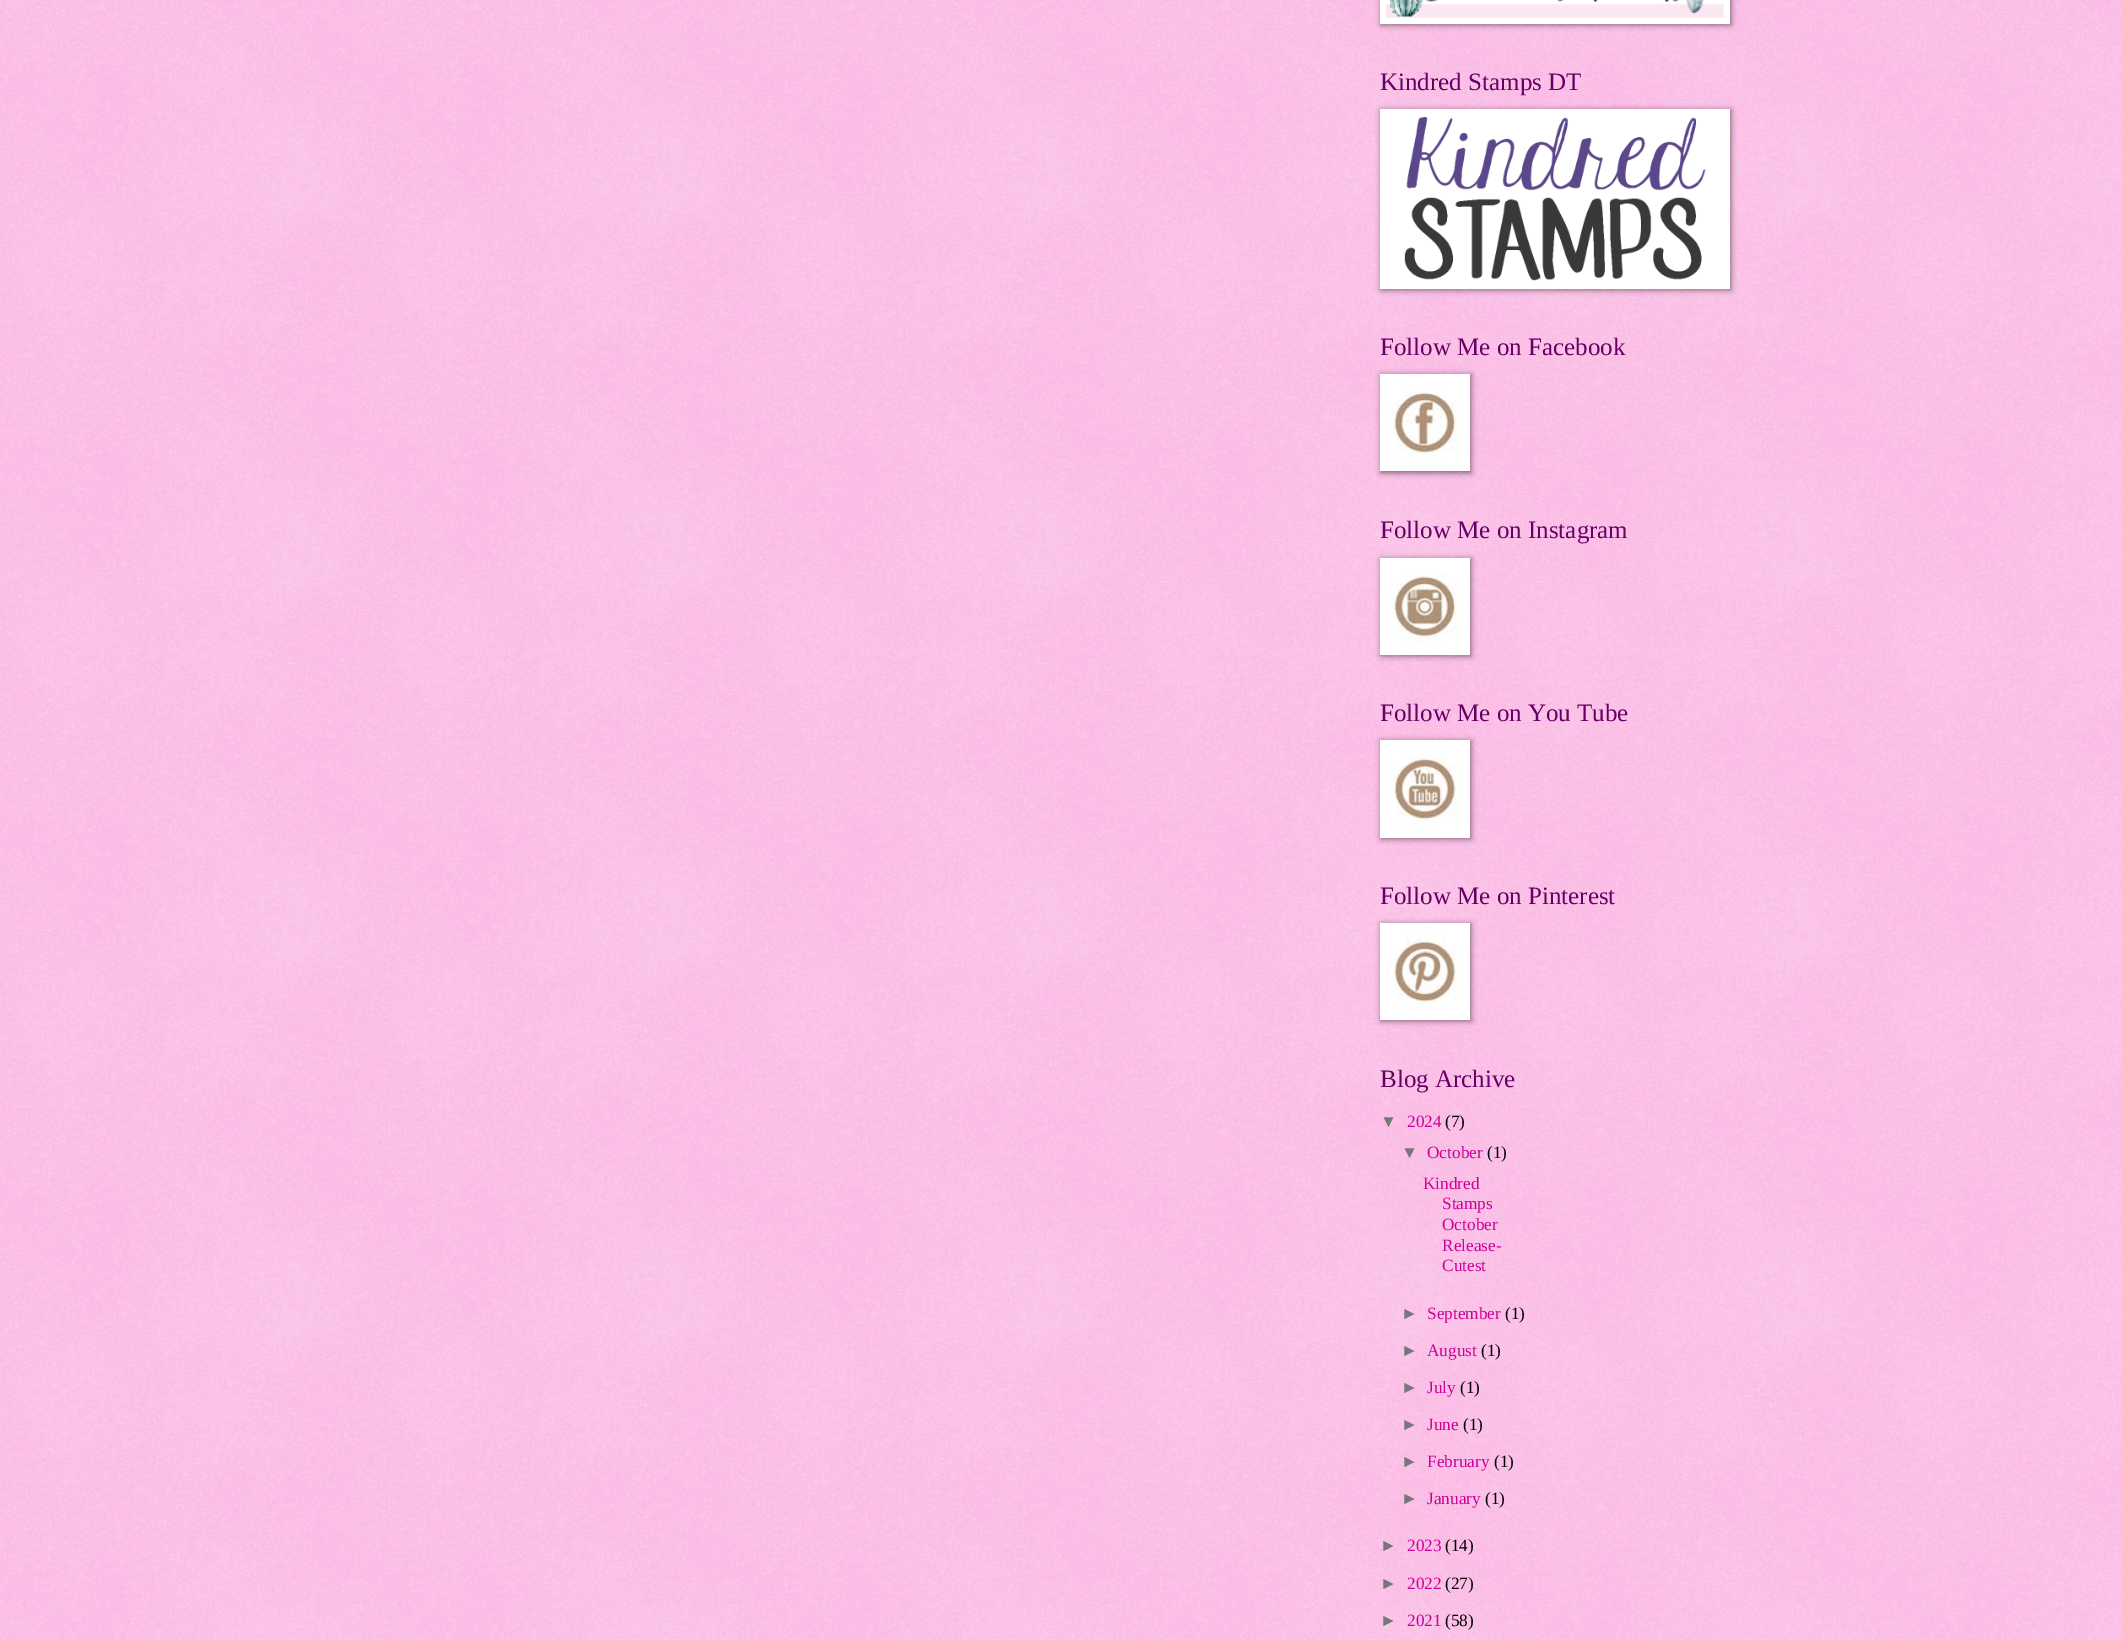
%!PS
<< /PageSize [2122 1640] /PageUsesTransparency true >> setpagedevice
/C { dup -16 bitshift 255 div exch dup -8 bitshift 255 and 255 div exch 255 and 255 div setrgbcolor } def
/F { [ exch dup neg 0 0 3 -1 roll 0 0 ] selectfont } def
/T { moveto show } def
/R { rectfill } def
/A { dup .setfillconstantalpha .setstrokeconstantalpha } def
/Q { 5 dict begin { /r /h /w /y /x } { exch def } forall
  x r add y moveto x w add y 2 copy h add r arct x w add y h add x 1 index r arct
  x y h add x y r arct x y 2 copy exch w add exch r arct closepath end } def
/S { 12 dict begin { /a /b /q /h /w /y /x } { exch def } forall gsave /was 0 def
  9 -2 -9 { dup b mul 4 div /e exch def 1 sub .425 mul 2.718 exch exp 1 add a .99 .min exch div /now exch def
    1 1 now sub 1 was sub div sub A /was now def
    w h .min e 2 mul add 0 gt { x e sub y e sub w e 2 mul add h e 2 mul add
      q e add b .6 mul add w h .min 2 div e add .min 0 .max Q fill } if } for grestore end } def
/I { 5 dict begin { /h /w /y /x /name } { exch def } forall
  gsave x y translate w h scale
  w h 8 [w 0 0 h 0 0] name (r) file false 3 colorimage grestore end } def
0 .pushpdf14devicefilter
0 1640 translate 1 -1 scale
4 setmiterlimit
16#FFFFFF C
0 0 2122 1640 R
(1.rgb) 0 0 2122 1640 I
16#000000 C
1381 -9 350 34 0 3 .5 S
16#FFFFFF C
1380 0 350 24 R
(2.rgb) 1386 0 338 18 I
/LiberationSerif-Regular 25 F
16#660066 C
(Kindred Stamps DT) 1380 90 T
16#000000 C
1381 110 350 180 0 3 .5 S
16#FFFFFF C
1380 109 350 180 R
(3.rgb) 1404 117 302 164 I
16#660066 C
(Follow Me on Facebook) 1380 355 T
16#000000 C
1381 375 90 98 0 3 .5 S
16#FFFFFF C
1380 374 90 97 R
(4.rgb) 1386 390 72 70 I
16#660066 C
(Follow Me on Instagram) 1380 538 T
16#000000 C
1381 559 90 97 0 3 .5 S
16#FFFFFF C
1380 558 90 97 R
(5.rgb) 1386 574 72 71 I
16#660066 C
(Follow Me on You Tube) 1380 721 T
16#000000 C
1381 741 90 98 0 3 .5 S
16#FFFFFF C
1380 740 90 98 R
(6.rgb) 1386 756 76 70 I
16#660066 C
(Follow Me on Pinterest) 1380 904 T
16#000000 C
1381 924 90 97 0 3 .5 S
16#FFFFFF C
1380 923 90 97 R
(7.rgb) 1386 932 76 77 I
16#660066 C
(Blog Archive) 1380 1087 T
/LiberationSans-Regular 17.25 F
16#777777 C
(▼) 1380 1127 T
/LiberationSerif-Regular 17.25 F
16#CC0099 C
(2024) 1407 1127 T
16#000000 C
(\(7\)) 1445 1127 T
/LiberationSans-Regular 17.25 F
16#777777 C
(▼) 1401 1158 T
/LiberationSerif-Regular 17.25 F
16#CC0099 C
(October) 1427 1158 T
16#000000 C
(\(1\)) 1487 1158 T
16#CC0099 C
(Kindred) 1423 1189 T
(Stamps) 1442 1209 T
(October) 1442 1230 T
(Release-) 1442 1251 T
(Cutest) 1442 1271 T
/LiberationSans-Regular 17.25 F
16#777777 C
(►) 1401 1319 T
/LiberationSerif-Regular 17.25 F
16#CC0099 C
(September) 1427 1319 T
16#000000 C
(\(1\)) 1505 1319 T
/LiberationSans-Regular 17.25 F
16#777777 C
(►) 1401 1356 T
/LiberationSerif-Regular 17.25 F
16#CC0099 C
(August) 1427 1356 T
16#000000 C
(\(1\)) 1481 1356 T
/LiberationSans-Regular 17.25 F
16#777777 C
(►) 1401 1393 T
/LiberationSerif-Regular 17.25 F
16#CC0099 C
(July) 1427 1393 T
16#000000 C
(\(1\)) 1460 1393 T
/LiberationSans-Regular 17.25 F
16#777777 C
(►) 1401 1430 T
/LiberationSerif-Regular 17.25 F
16#CC0099 C
(June) 1427 1430 T
16#000000 C
(\(1\)) 1463 1430 T
/LiberationSans-Regular 17.25 F
16#777777 C
(►) 1401 1467 T
/LiberationSerif-Regular 17.25 F
16#CC0099 C
(February) 1427 1467 T
16#000000 C
(\(1\)) 1494 1467 T
/LiberationSans-Regular 17.25 F
16#777777 C
(►) 1401 1504 T
/LiberationSerif-Regular 17.25 F
16#CC0099 C
(January) 1427 1504 T
16#000000 C
(\(1\)) 1485 1504 T
/LiberationSans-Regular 17.25 F
16#777777 C
(►) 1380 1551 T
/LiberationSerif-Regular 17.25 F
16#CC0099 C
(2023) 1407 1551 T
16#000000 C
(\(14\)) 1445 1551 T
/LiberationSans-Regular 17.25 F
16#777777 C
(►) 1380 1589 T
/LiberationSerif-Regular 17.25 F
16#CC0099 C
(2022) 1407 1589 T
16#000000 C
(\(27\)) 1445 1589 T
/LiberationSans-Regular 17.25 F
16#777777 C
(►) 1380 1626 T
/LiberationSerif-Regular 17.25 F
16#CC0099 C
(2021) 1407 1626 T
16#000000 C
(\(58\)) 1445 1626 T
.poppdf14devicefilter showpage
